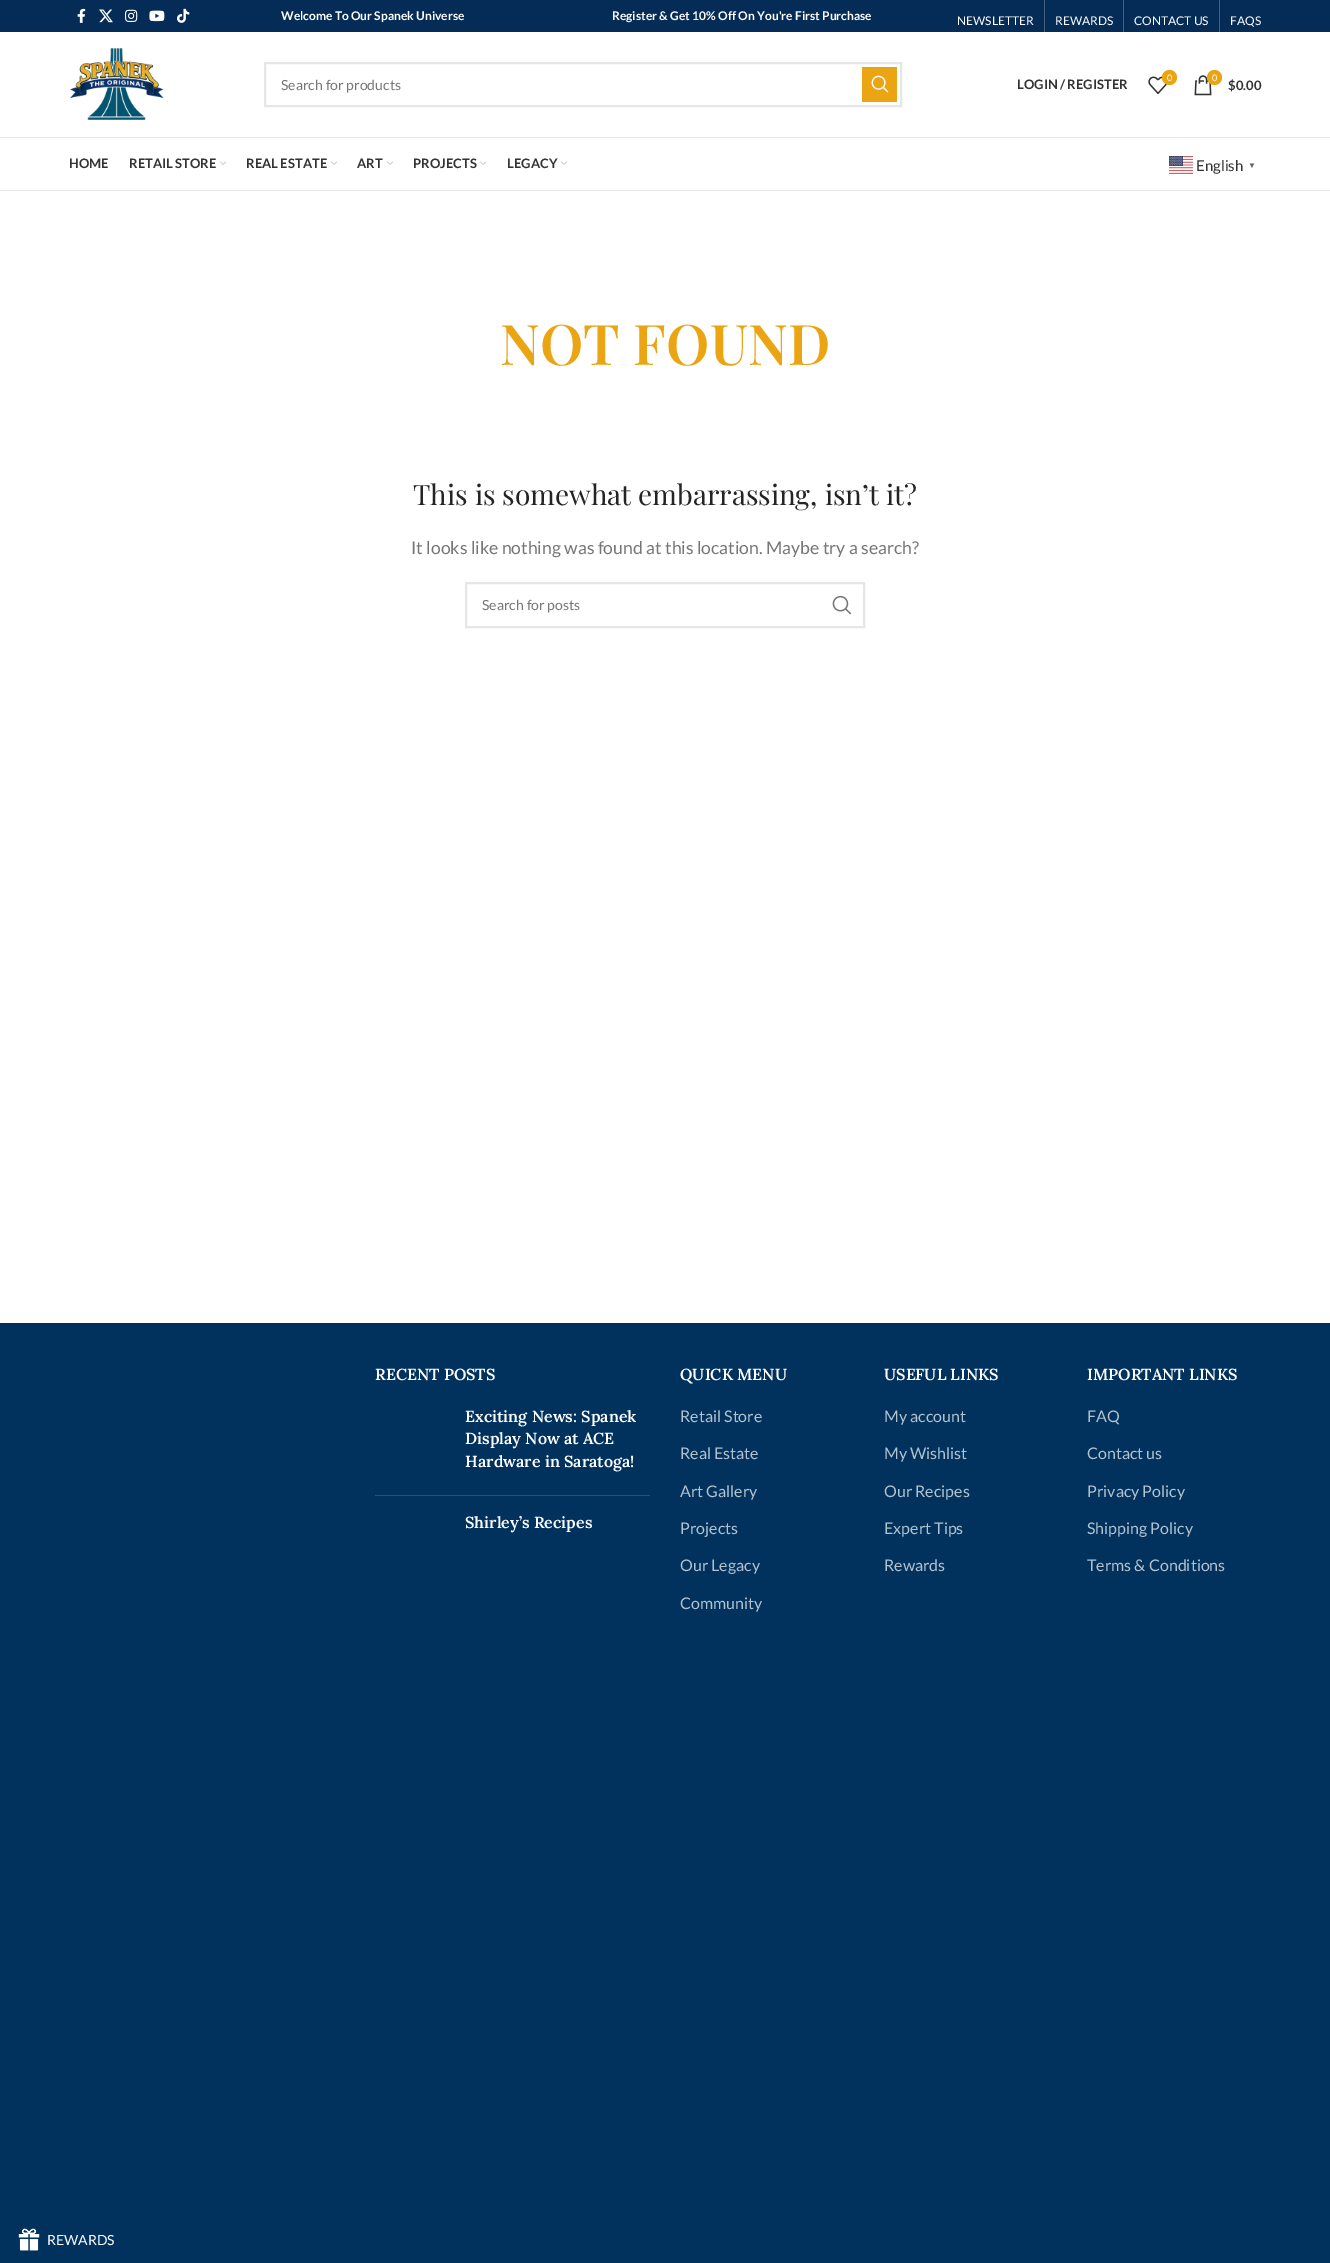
%!PS
<< /PageSize [1330 2263] >> setpagedevice
/f/fill load def
/w/setlinewidth load def
/C { dup -16 bitshift 255 div exch dup -8 bitshift 255 and 255 div exch 255 and 255 div setrgbcolor } def
/F { [ exch dup neg 0 0 3 -1 roll 0 0 ] selectfont } def
/T { moveto show } def
/R { rectfill } def
/O { newpath 0 360 arc closepath } def
/I { 5 dict begin { /h /w /y /x /name } { exch def } forall
  gsave x y translate w h scale
  w h 8 [w 0 0 h 0 0] name (r) file false 3 colorimage grestore end } def
0 2263 translate 1 -1 scale
4 setmiterlimit
16#FFFFFF C
0 0 1330 2263 R
16#052C57 C
0 0 1330 32 R
(1.rgb) 77 8 9 15 I
(2.rgb) 99 9 14 14 I
(3.rgb) 125 9 13 13 I
(4.rgb) 149 10 16 12 I
(5.rgb) 177 8 13 15 I
/Lato-Bold 12 F
16#FFFFFF C
(Welcome To Our Spanek Universe) 281 20 T
(Register & Get 10% Off On You're First Purchase) 612 20 T
/Lato-Regular 12 F
(NEWSLETTER) 957 25 T
16#446181 C
1044 0 1 32 R
16#FFFFFF C
(REWARDS) 1055 25 T
16#446181 C
1123 0 1 32 R
16#FFFFFF C
(CONTACT US) 1134 25 T
16#446181 C
1219 0 1 32 R
16#FFFFFF C
(FAQS) 1230 25 T
16#E8E8E8 C
0 137 1330 1 R
(6.rgb) 70 48 94 72 I
16#E6E6E6 C
2 w
265 63 636 43 rectstroke
/Lato-Regular 14 F
16#767676 C
(Search for products) 281 90 T
16#EBA513 C
862 67 35 35 R
(7.rgb) 871 75 18 18 I
/Lato-Bold 13 F
16#333333 C
(LOGIN / REGISTER) 1017 89 T
(8.rgb) 1148 76 20 18 I
16#EBA513 C
1169.5 77.5 7.5 O f
/Lato-Regular 9 F
16#FFFFFF C
(0) 1167 81 T
(9.rgb) 1194 75 18 21 I
16#EBA513 C
1214.5 77.5 7.5 O f
16#FFFFFF C
(0) 1212 81 T
/Lato-Bold 13 F
16#333333 C
($0.00) 1228 90 T
16#E8E8E8 C
0 190 1330 1 R
16#333333 C
(HOME) 69 168 T
(RETAIL STORE) 129 168 T
(10.rgb) 220 161 6 4 I
(REAL ESTATE) 246 168 T
(10.rgb) 331 161 6 4 I
(ART) 357 168 T
(10.rgb) 387 161 6 4 I
(PROJECTS) 413 168 T
(10.rgb) 480 161 6 4 I
(LEGACY) 507 168 T
(10.rgb) 561 161 6 4 I
(11.rgb) 1169 156 24 18 I
/Lato-Regular 15 F
(English) 1196 171 T
/LiberationSans-Bold 8 F
16#666666 C
(▼) 1248 168 T
/PlayfairDisplay-SemiBold 56 F
16#EBA513 C
(NOT FOUND) 500 365 T
/PlayfairDisplay-Regular 28 F
16#242424 C
(This is somewhat embarrassing, isn’t it?) 413 505 T
/Lato-Regular 17.6 F
16#767676 C
(It looks like nothing was found at this location. Maybe try a search?) 411 554 T
16#E6E6E6 C
466 583 398 44 rectstroke
/Lato-Regular 14 F
16#767676 C
(Search for posts) 482 610 T
(12.rgb) 832 595 20 20 I
16#01325D C
0 1323 1330 940 R
/Lora-SemiBold 16 F
16#FFFFFF C
(RECENT POSTS) 375 1380 T
16#275175 C
375 1495 275 1 R
16#FFFFFF C
(Exciting News: Spanek) 465 1422 T
(Display Now at ACE) 465 1444 T
(Hardware in Saratoga!) 465 1467 T
(Shirley’s Recipes) 465 1528 T
(QUICK MENU) 680 1380 T
/Lato-Regular 16 F
16#B3C2CE C
(Retail Store) 680 1422 T
(Real Estate) 680 1459 T
(Art Gallery) 680 1497 T
(Projects) 680 1534 T
(Our Legacy) 680 1571 T
(Community) 680 1609 T
/Lora-SemiBold 16 F
16#FFFFFF C
(USEFUL LINKS) 884 1380 T
/Lato-Regular 16 F
16#B3C2CE C
(My account) 884 1422 T
(My Wishlist) 884 1459 T
(Our Recipes) 884 1497 T
(Expert Tips) 884 1534 T
(Rewards) 884 1571 T
/Lora-SemiBold 16 F
16#FFFFFF C
(IMPORTANT LINKS) 1087 1380 T
/Lato-Regular 16 F
16#B3C2CE C
(FAQ) 1087 1422 T
(Contact us) 1087 1459 T
(Privacy Policy) 1087 1497 T
(Shipping Policy) 1087 1534 T
(Terms & Conditions) 1087 1571 T
(13.rgb) 18 2228 22 23 I
/Lato-Regular 14 F
16#FFFFFF C
(REWARDS) 47 2245 T
showpage
